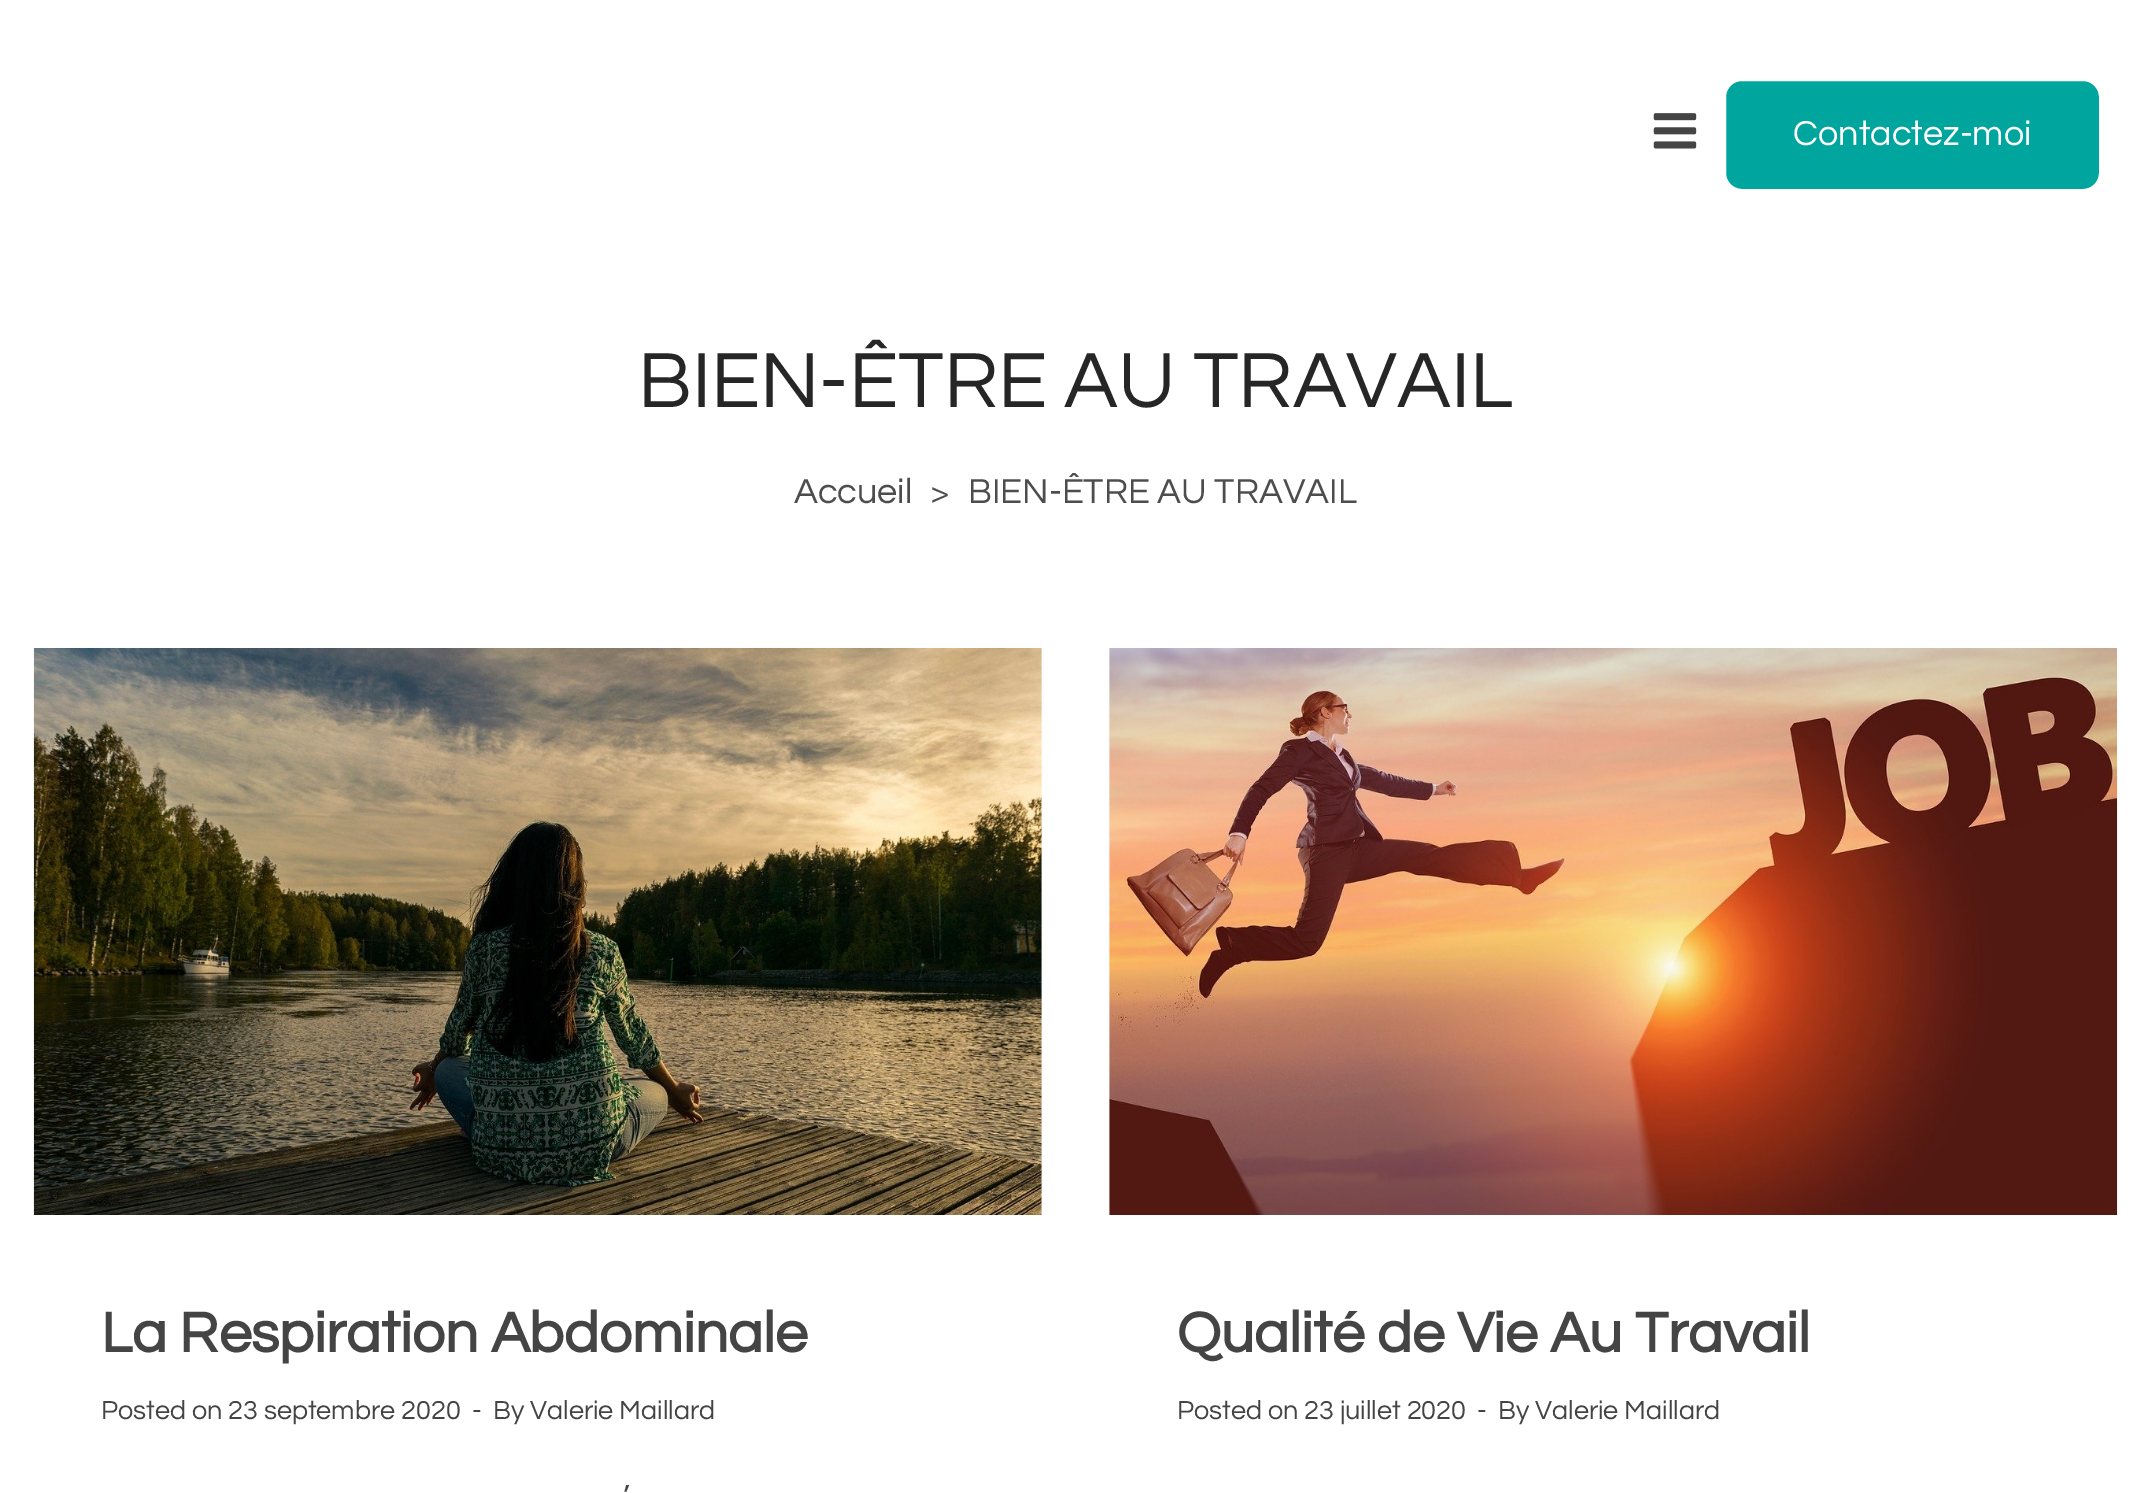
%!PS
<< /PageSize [2149 1493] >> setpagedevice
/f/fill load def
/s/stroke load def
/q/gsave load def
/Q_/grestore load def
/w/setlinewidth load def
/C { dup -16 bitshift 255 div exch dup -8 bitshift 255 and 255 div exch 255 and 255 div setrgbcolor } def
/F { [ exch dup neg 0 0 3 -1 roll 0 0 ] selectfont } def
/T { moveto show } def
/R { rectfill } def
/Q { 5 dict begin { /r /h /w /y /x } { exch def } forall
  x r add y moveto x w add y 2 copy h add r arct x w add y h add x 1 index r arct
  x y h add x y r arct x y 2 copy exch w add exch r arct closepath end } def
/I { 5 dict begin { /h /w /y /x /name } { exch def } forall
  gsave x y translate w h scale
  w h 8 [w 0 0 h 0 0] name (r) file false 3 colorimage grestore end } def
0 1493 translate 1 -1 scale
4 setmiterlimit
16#FFFFFF C
0 0 2149 1493 R
(1.rgb) 1653 113 44 36 I
16#00A69D C
1722.5 77.5 380 115 19.5 Q q f Q_
16#FFFFFF C
7 w
s
/Questrial-Regular 36 F
(Contactez-moi) 1793 145 T
/Questrial-Regular 81 F
16#262626 C
(BIEN-ÊTRE AU TRAVAIL) 638 407 T
/Questrial-Regular 36 F
16#4D4D4D C
(Accueil) 794 503 T
/Questrial-Regular 32 F
(>) 931 503 T
/Questrial-Regular 36 F
(BIEN-ÊTRE AU TRAVAIL) 968 503 T
16#F8F8F8 C
1041 648 1 567 R
(2.rgb) 33 648 1009 567 I
/Questrial-Bold 58.5 F
16#444444 C
(La Respiration Abdominale) 101 1352 T
/Questrial-Regular 27 F
(Posted on 23 septembre 2020) 101 1419 T
(-) 472 1419 T
(By Valerie Maillard) 493 1419 T
/Questrial-Regular 32 F
(’) 623 1507 T
16#F8F8F8 C
1109 648 1 567 R
(3.rgb) 1109 648 1009 567 I
/Questrial-Bold 58.5 F
16#444444 C
(Qualité de Vie Au Travail) 1177 1352 T
/Questrial-Regular 27 F
(Posted on 23 juillet 2020) 1177 1419 T
(-) 1477 1419 T
(By Valerie Maillard) 1498 1419 T
showpage
